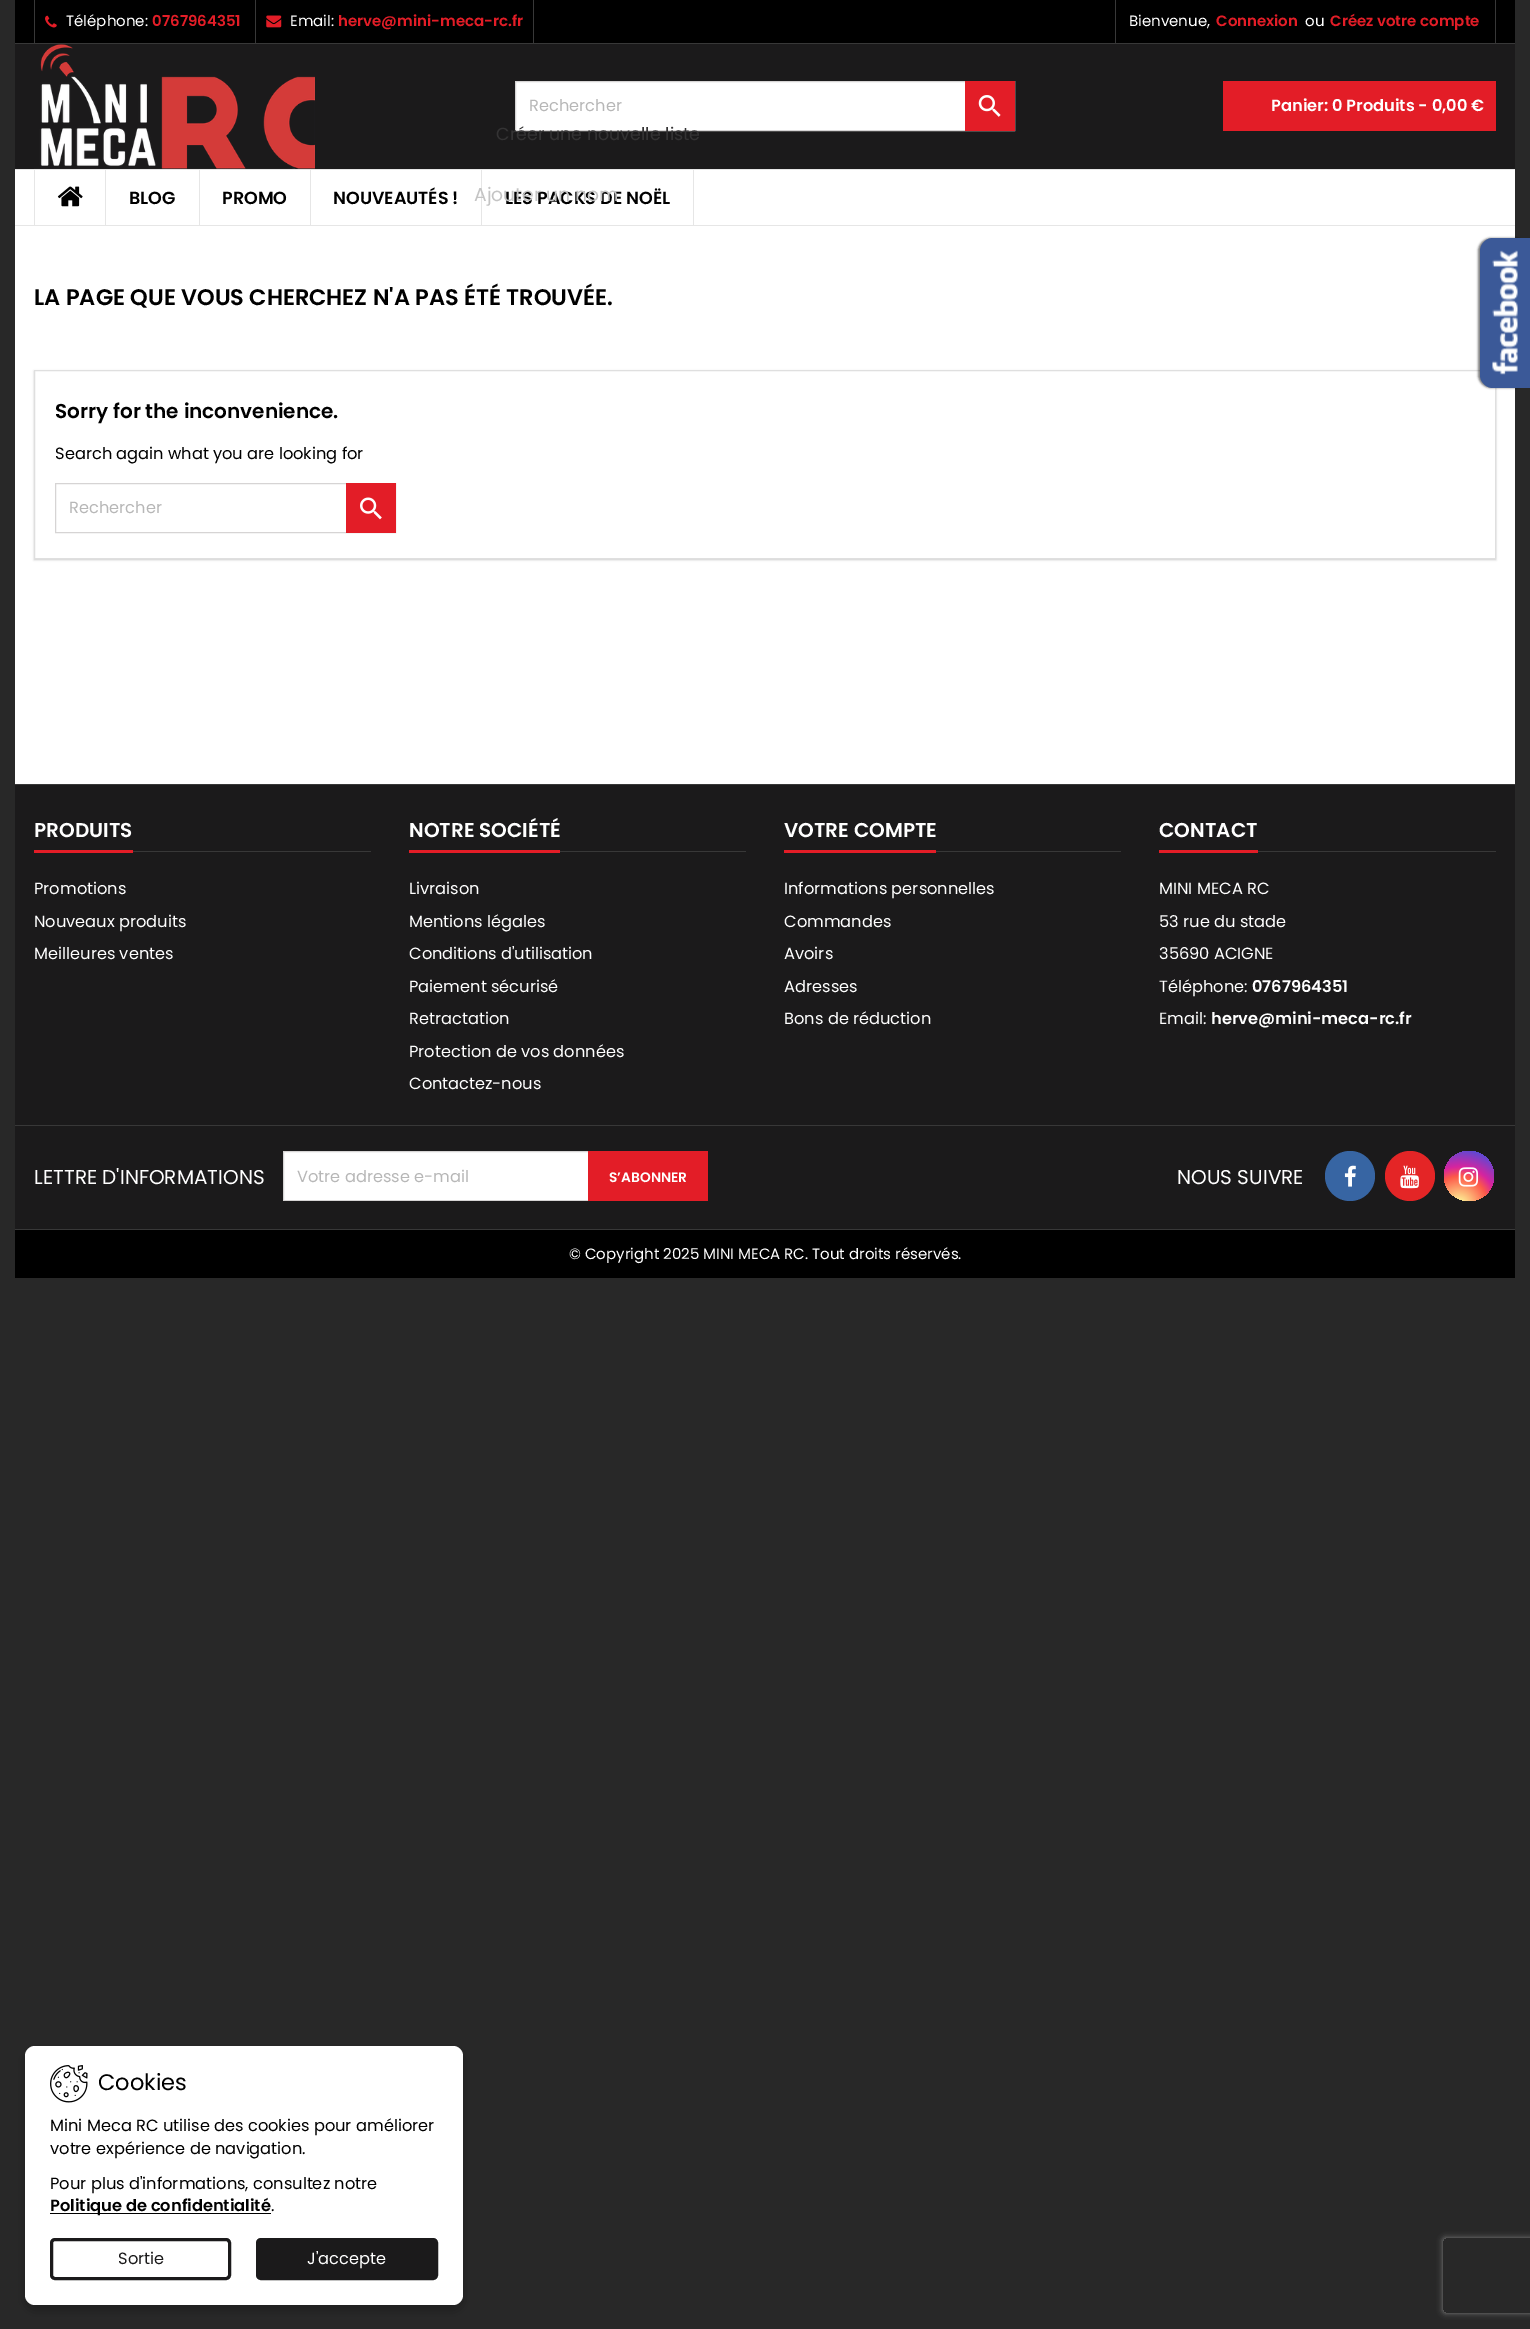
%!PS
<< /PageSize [1530 2329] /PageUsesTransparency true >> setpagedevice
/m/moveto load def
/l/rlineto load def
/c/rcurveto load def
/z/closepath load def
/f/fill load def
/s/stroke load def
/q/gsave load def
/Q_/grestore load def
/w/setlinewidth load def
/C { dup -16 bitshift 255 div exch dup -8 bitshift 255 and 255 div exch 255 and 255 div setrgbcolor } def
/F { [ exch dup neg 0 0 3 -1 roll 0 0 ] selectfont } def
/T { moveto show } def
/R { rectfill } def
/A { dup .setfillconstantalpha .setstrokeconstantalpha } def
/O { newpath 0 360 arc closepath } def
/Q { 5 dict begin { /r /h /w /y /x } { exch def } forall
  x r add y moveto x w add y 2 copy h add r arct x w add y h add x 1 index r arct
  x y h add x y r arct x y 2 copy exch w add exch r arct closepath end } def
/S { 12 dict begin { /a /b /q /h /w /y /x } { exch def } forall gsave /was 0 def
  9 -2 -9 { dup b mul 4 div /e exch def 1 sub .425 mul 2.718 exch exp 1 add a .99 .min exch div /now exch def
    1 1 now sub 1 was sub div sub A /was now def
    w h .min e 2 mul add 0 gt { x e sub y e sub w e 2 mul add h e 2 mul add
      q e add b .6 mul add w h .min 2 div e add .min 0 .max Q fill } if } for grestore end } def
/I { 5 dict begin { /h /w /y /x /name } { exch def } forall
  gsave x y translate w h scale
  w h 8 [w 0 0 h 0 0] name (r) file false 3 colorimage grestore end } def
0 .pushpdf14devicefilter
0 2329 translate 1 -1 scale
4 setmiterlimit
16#282828 C
0 0 1530 2329 R
16#FFFFFF C
15 170 1500 614 R
16#000000 C
15 0 1500 43 R
16#383838 C
15 43 1500 1 R
34 0 1 43 R
(1.rgb) 45 15 12 13 I
/Poppins-Regular 15 F
16#FFFFFF C
(Téléphone:) 66 26 T
/Poppins-SemiBold 15 F
16#E31D27 C
(0767964351) 152 26 T
16#383838 C
533 0 1 43 R
255 0 1 43 R
(2.rgb) 266 15 16 13 I
/Poppins-Regular 15 F
16#FFFFFF C
(Email:) 290 26 T
/Poppins-SemiBold 15 F
16#E31D27 C
(herve@mini-meca-rc.fr) 338 26 T
16#383838 C
1495 0 1 43 R
1115 0 1 43 R
/Poppins-Regular 15 F
16#FFFFFF C
(Bienvenue,) 1129 26 T
/Poppins-SemiBold 15 F
16#E31D27 C
(Connexion) 1216 26 T
/Poppins-Regular 15 F
16#FFFFFF C
(ou) 1305 26 T
/Poppins-SemiBold 15 F
16#E31D27 C
(Créez votre compte) 1330 26 T
16#1B1A1B C
15 44 1500 125 R
(3.rgb) 34 44 281 125 I
16#FFFFFF C
516 82 449 48 R
16#D6D4D4 C
515.5 81.5 499 49 rectstroke
/Poppins-Regular 16.25 F
16#B7B7B7 C
(Rechercher) 529 111 T
16#E31D27 C
965 81 50 50 R
(4.rgb) 978 95 23 22 I
1223 81 273 50 R
/Poppins-SemiBold 16.25 F
16#FFFFFF C
(Panier: 0 Produits - 0,00 €) 1271 111 T
16#E6E6E6 C
15 169 1500 1 R
15 225 1500 1 R
34 170 1 55 R
(5.rgb) 57 186 26 21 I
105 170 1 55 R
/Poppins-SemiBold 17.5 F
16#000000 C
(BLOG) 129 204 T
16#E6E6E6 C
199 170 1 55 R
16#000000 C
(PROMO) 222 204 T
16#E6E6E6 C
310 170 1 55 R
16#000000 C
(NOUVEAUTÉS !) 333 204 T
16#E6E6E6 C
693 170 1 55 R
481 170 1 55 R
16#000000 C
(LES PACKS DE NOËL) 505 204 T
16#1B1A1B C
15 785 1500 444 R
16#383838 C
15 784 1500 1 R
/Poppins-Regular 17.5 F
16#343334 C
(Créer une nouvelle liste) 496 140 T
/Poppins-Regular 18.75 F
16#C4C4C4 C
(Ajouter un nom) 474 201 T
16#383838 C
133 851 238 1 R
16#E31D27 C
34 850 99 3 R
/Poppins-SemiBold 20 F
16#FFFFFF C
(PRODUITS) 34 837 T
/Poppins-Regular 16.25 F
(Promotions) 34 894 T
(Nouveaux produits) 34 927 T
(Meilleures ventes) 34 959 T
16#383838 C
560 851 186 1 R
16#E31D27 C
409 850 151 3 R
/Poppins-SemiBold 20 F
16#FFFFFF C
(NOTRE SOCIÉTÉ) 409 837 T
/Poppins-Regular 16.25 F
(Livraison) 409 894 T
(Mentions légales) 409 927 T
(Conditions d'utilisation) 409 959 T
(Paiement sécurisé) 409 992 T
(Retractation) 409 1024 T
(Protection de vos données) 409 1057 T
(Contactez-nous) 409 1089 T
16#383838 C
936 851 185 1 R
16#E31D27 C
784 850 152 3 R
/Poppins-SemiBold 20 F
16#FFFFFF C
(VOTRE COMPTE) 784 837 T
/Poppins-Regular 16.25 F
(Informations personnelles) 784 894 T
(Commandes) 784 927 T
(Avoirs) 784 959 T
(Adresses) 784 992 T
(Bons de réduction) 784 1024 T
16#383838 C
1258 851 238 1 R
16#E31D27 C
1159 850 99 3 R
/Poppins-SemiBold 20 F
16#FFFFFF C
(CONTACT) 1159 837 T
/Poppins-Regular 16.25 F
(MINI MECA RC) 1159 894 T
(53 rue du stade) 1159 927 T
(35690 ACIGNE) 1159 959 T
(Téléphone:) 1159 992 T
/Poppins-SemiBold 16.25 F
(0767964351) 1252 992 T
/Poppins-Regular 16.25 F
(Email:) 1159 1024 T
/Poppins-SemiBold 16.25 F
(herve@mini-meca-rc.fr) 1211 1024 T
16#000000 C
25 2051 438 259 10 6 .3 S
16#FFFFFF C
25 2046 438 259 10 Q f
(6.rgb) 50 2065 38 38 I
/Poppins-Regular 22.5 F
16#000000 C
(Cookies) 98 2090 T
/Poppins-Regular 16.25 F
(Mini Meca RC utilise des cookies pour améliorer) 50 2131 T
(votre expérience de navigation.) 50 2154 T
(Pour plus d'informations, consultez notre) 50 2189 T
50 2213 221 1 R
/Poppins-SemiBold 16.25 F
(Politique de confidentialité) 50 2211 T
/Poppins-Regular 16.25 F
(.) 271 2211 T
16#1B1A1B C
3 w
51.5 2239.5 178 39 3.5 Q s
(Sortie) 118 2264 T
257.5 2239.5 179 39 3.5 Q q f Q_
s
16#FFFFFF C
(J'accepte) 307 2264 T
16#383838 C
15 1125 1500 1 R
/Poppins-Regular 20 F
16#FFFFFF C
(LETTRE D'INFORMATIONS) 34 1184 T
284 1152 304 48 R
16#E31D27 C
588 1151 120 50 R
q
283 1151 305 50 rectclip
16#D6D4D4 C
1 w
283.5 1151.5 317 49 rectstroke
Q_
/Poppins-Regular 16.25 F
16#B7B7B7 C
(Votre adresse e-mail) 297 1182 T
/Poppins-SemiBold 13.75 F
16#FFFFFF C
(S’ABONNER) 609 1182 T
/Poppins-Regular 20 F
(NOUS SUIVRE) 1177 1184 T
16#3765A3 C
1350 1176 25 O f
(7.rgb) 1344 1165 12 22 I
16#E42526 C
1410 1176 25 O f
(8.rgb) 1400 1165 19 24 I
q 1469 1176 25 O clip newpath 1459 1205 translate 64 64 scale
<< /ShadingType 3 /ColorSpace /DeviceRGB /Coords [0 0 0 0 0 1] /Extend [true true] /Function << /FunctionType 3 /Domain [0 1] /Functions [<< /FunctionType 2 /Domain [0 1] /C0 [.992 .957 .592] /C1 [.992 .957 .592] /N 1 >> << /FunctionType 2 /Domain [0 1] /C0 [.992 .957 .592] /C1 [.992 .349 .286] /N 1 >> << /FunctionType 2 /Domain [0 1] /C0 [.992 .349 .286] /C1 [.839 .141 .624] /N 1 >> << /FunctionType 2 /Domain [0 1] /C0 [.839 .141 .624] /C1 [.157 .353 .922] /N 1 >>] /Bounds [.05 .45 .6] /Encode [0 1 0 1 0 1 0 1] >> >> shfill Q_
(9.rgb) 1458 1167 21 20 I
16#000000 C
15 1230 1500 48 R
16#383838 C
15 1229 1500 1 R
/Poppins-Regular 15 F
16#FFFFFF C
(© Copyright 2025 MINI MECA RC. Tout droits réservés.) 569 1259 T
/Poppins-SemiBold 22.5 F
16#000000 C
(LA PAGE QUE VOUS CHERCHEZ N'A PAS ÉTÉ TROUVÉE.) 34 305 T
34 371 1462 189 0 1 .2 S
16#FFFFFF C
34.5 370.5 m 1461 0 l 0 188 l -1461 0 l z q f Q_
16#DFDFDF C
1 w
s
/Poppins-SemiBold 20 F
16#000000 C
(Sorry for the inconvenience.) 55 418 T
/Poppins-Regular 16.25 F
(Search again what you are looking for) 55 459 T
16#D6D4D4 C
55.5 483.5 340 49 rectstroke
16#B7B7B7 C
(Rechercher) 69 513 T
16#E31D27 C
346 483 50 50 R
(10.rgb) 360 497 22 23 I
16#000000 C
1478 238 50 150 13 1 .5 S
16#3B5998 C
1493 238 m 37 0 l 0 150 l -37 0 l -7 0 -13 -6 -13 -13 c 0 -124 l 0 -7 6 -13 13 -13 c z f
(11.rgb) 1492 250 26 125 I
q
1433 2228 m 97 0 l 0 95 l -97 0 l z 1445.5 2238 m 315 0 l 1.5 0 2.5 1 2.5 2.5 c 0 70 l 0 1.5 -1 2.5 -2.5 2.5 c -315 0 l -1.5 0 -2.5 -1 -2.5 -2.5 c 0 -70 l 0 -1.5 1 -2.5 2.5 -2.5 c z eoclip newpath
16#808080 C
1443 2238 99 75 2.5 3 1 S
Q_
.poppdf14devicefilter showpage
